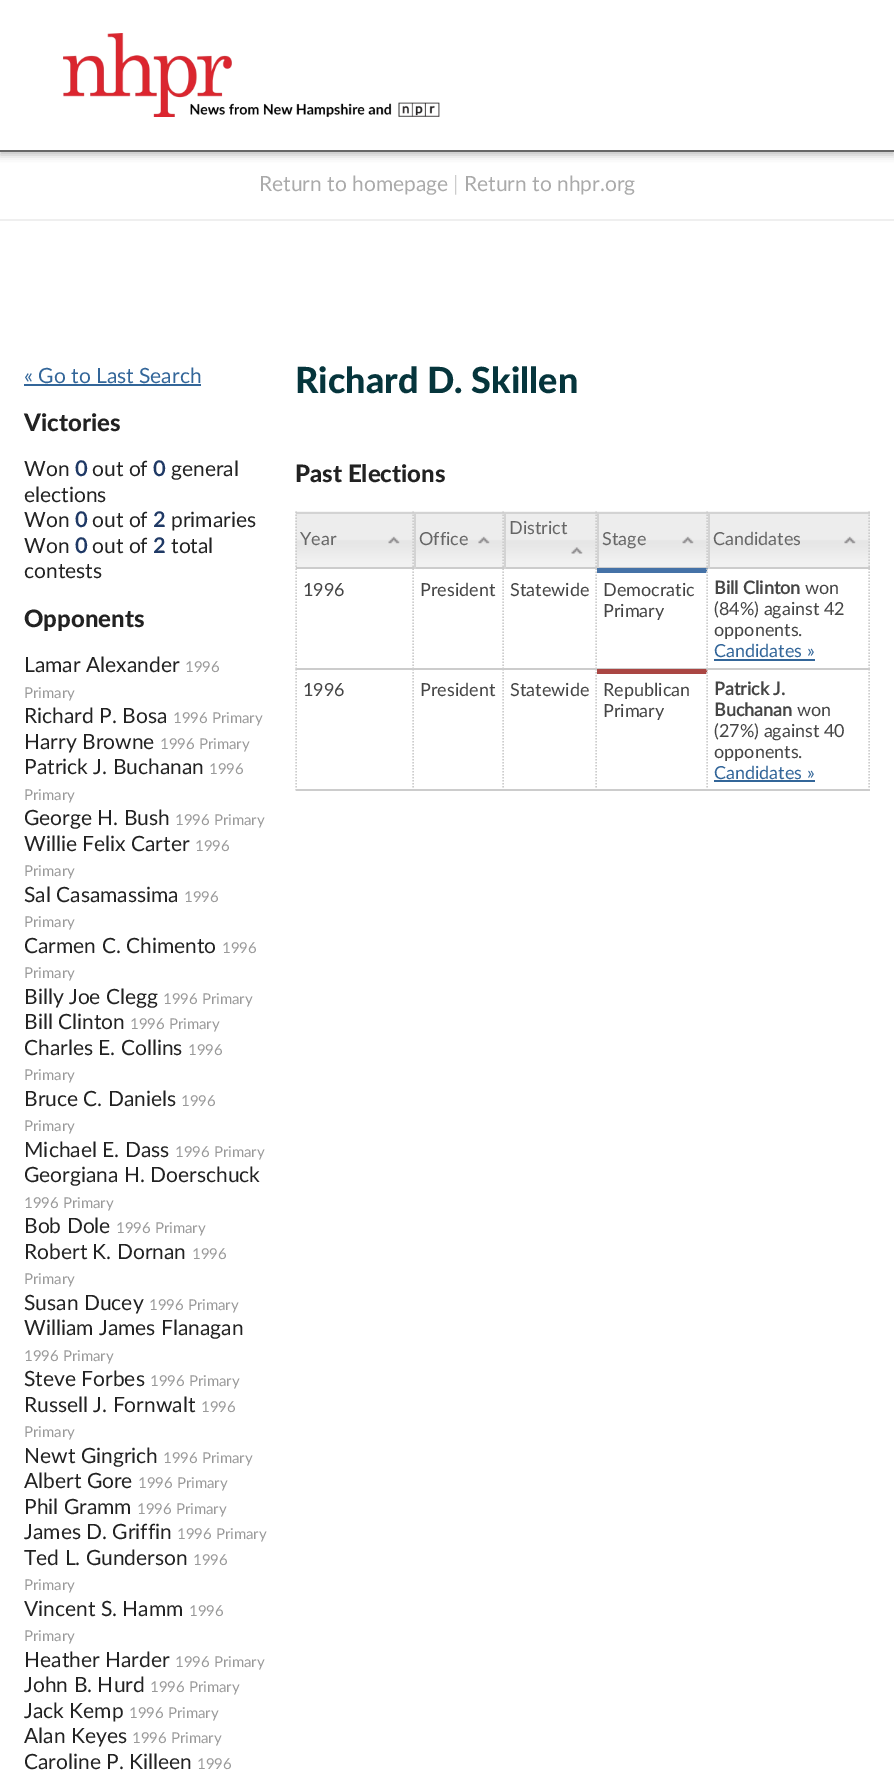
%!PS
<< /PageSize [894 1782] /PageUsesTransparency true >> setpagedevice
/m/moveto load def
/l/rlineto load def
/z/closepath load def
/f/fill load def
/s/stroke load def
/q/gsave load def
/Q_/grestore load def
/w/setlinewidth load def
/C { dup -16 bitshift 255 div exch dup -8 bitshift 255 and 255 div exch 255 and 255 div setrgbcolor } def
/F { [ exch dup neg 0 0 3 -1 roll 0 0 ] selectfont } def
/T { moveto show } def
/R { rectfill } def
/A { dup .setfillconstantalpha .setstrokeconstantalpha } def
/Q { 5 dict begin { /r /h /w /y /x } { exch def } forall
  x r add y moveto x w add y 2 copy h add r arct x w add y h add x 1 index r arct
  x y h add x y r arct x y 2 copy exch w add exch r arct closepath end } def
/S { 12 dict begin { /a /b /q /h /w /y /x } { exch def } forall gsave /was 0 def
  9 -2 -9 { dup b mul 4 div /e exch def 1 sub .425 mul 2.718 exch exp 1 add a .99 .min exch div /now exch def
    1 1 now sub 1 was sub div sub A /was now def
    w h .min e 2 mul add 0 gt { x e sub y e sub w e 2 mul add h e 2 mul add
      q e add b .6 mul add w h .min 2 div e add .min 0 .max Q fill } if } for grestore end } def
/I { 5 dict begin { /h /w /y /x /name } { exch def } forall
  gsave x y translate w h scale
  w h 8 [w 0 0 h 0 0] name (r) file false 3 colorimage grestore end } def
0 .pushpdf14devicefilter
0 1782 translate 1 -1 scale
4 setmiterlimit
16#FFFFFF C
0 0 894 1782 R
q
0 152 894 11 rectclip
16#BBBBBB C
0 3 894 152 0 4 1 S
Q_
16#666666 C
0 150 894 2 R
(1.rgb) 63 33 377 84 I
16#EFEFEF C
0 219 894 2 R
/Lato-Regular 21 F
16#AAAAAA C
(Return to homepage) 259 191 T
16#CCCCCC C
(|) 453 191 T
16#AAAAAA C
(Return to nhpr.org) 464 191 T
16#336699 C
(« Go to Last Search) 24 383 T
24 384 177 2 R
/Lato-Black 24 F
16#222222 C
(Victories) 24 431 T
/Lato-Regular 21 F
(Won) 24 476 T
/Lato-Bold 21 F
16#1F3965 C
(0) 75 476 T
/Lato-Regular 21 F
16#222222 C
(out of) 92 476 T
/Lato-Bold 21 F
16#1F3965 C
(0) 153 476 T
/Lato-Regular 21 F
16#222222 C
(general) 171 476 T
(elections) 24 502 T
(Won) 24 527 T
/Lato-Bold 21 F
16#1F3965 C
(0) 75 527 T
/Lato-Regular 21 F
16#222222 C
(out of) 92 527 T
/Lato-Bold 21 F
16#1F3965 C
(2) 153 527 T
/Lato-Regular 21 F
16#222222 C
(primaries) 171 527 T
(Won) 24 553 T
/Lato-Bold 21 F
16#1F3965 C
(0) 75 553 T
/Lato-Regular 21 F
16#222222 C
(out of) 92 553 T
/Lato-Bold 21 F
16#1F3965 C
(2) 153 553 T
/Lato-Regular 21 F
16#222222 C
(total) 171 553 T
(contests) 24 578 T
/Lato-Black 24 F
(Opponents) 24 627 T
/Lato-Regular 21 F
(Lamar Alexander) 24 672 T
/Lato-Regular 15 F
16#999999 C
(1996) 185 672 T
(Primary) 24 698 T
/Lato-Regular 21 F
16#222222 C
(Richard P. Bosa) 24 723 T
/Lato-Regular 15 F
16#999999 C
(1996 Primary) 173 723 T
/Lato-Regular 21 F
16#222222 C
(Harry Browne) 24 749 T
/Lato-Regular 15 F
16#999999 C
(1996 Primary) 160 749 T
/Lato-Regular 21 F
16#222222 C
(Patrick J. Buchanan) 24 774 T
/Lato-Regular 15 F
16#999999 C
(1996) 209 774 T
(Primary) 24 800 T
/Lato-Regular 21 F
16#222222 C
(George H. Bush) 24 825 T
/Lato-Regular 15 F
16#999999 C
(1996 Primary) 175 825 T
/Lato-Regular 21 F
16#222222 C
(Willie Felix Carter) 24 851 T
/Lato-Regular 15 F
16#999999 C
(1996) 195 851 T
(Primary) 24 876 T
/Lato-Regular 21 F
16#222222 C
(Sal Casamassima) 24 902 T
/Lato-Regular 15 F
16#999999 C
(1996) 184 902 T
(Primary) 24 927 T
/Lato-Regular 21 F
16#222222 C
(Carmen C. Chimento) 24 953 T
/Lato-Regular 15 F
16#999999 C
(1996) 222 953 T
(Primary) 24 978 T
/Lato-Regular 21 F
16#222222 C
(Billy Joe Clegg) 24 1004 T
/Lato-Regular 15 F
16#999999 C
(1996 Primary) 163 1004 T
/Lato-Regular 21 F
16#222222 C
(Bill Clinton) 24 1029 T
/Lato-Regular 15 F
16#999999 C
(1996 Primary) 130 1029 T
/Lato-Regular 21 F
16#222222 C
(Charles E. Collins) 24 1055 T
/Lato-Regular 15 F
16#999999 C
(1996) 188 1055 T
(Primary) 24 1080 T
/Lato-Regular 21 F
16#222222 C
(Bruce C. Daniels) 24 1106 T
/Lato-Regular 15 F
16#999999 C
(1996) 181 1106 T
(Primary) 24 1131 T
/Lato-Regular 21 F
16#222222 C
(Michael E. Dass) 24 1157 T
/Lato-Regular 15 F
16#999999 C
(1996 Primary) 175 1157 T
/Lato-Regular 21 F
16#222222 C
(Georgiana H. Doerschuck) 24 1182 T
/Lato-Regular 15 F
16#999999 C
(1996 Primary) 24 1208 T
/Lato-Regular 21 F
16#222222 C
(Bob Dole) 24 1233 T
/Lato-Regular 15 F
16#999999 C
(1996 Primary) 116 1233 T
/Lato-Regular 21 F
16#222222 C
(Robert K. Dornan) 24 1259 T
/Lato-Regular 15 F
16#999999 C
(1996) 192 1259 T
(Primary) 24 1284 T
/Lato-Regular 21 F
16#222222 C
(Susan Ducey) 24 1310 T
/Lato-Regular 15 F
16#999999 C
(1996 Primary) 149 1310 T
/Lato-Regular 21 F
16#222222 C
(William James Flanagan) 24 1335 T
/Lato-Regular 15 F
16#999999 C
(1996 Primary) 24 1361 T
/Lato-Regular 21 F
16#222222 C
(Steve Forbes) 24 1386 T
/Lato-Regular 15 F
16#999999 C
(1996 Primary) 150 1386 T
/Lato-Regular 21 F
16#222222 C
(Russell J. Fornwalt) 24 1412 T
/Lato-Regular 15 F
16#999999 C
(1996) 201 1412 T
(Primary) 24 1437 T
/Lato-Regular 21 F
16#222222 C
(Newt Gingrich) 24 1463 T
/Lato-Regular 15 F
16#999999 C
(1996 Primary) 163 1463 T
/Lato-Regular 21 F
16#222222 C
(Albert Gore) 24 1488 T
/Lato-Regular 15 F
16#999999 C
(1996 Primary) 138 1488 T
/Lato-Regular 21 F
16#222222 C
(Phil Gramm) 24 1514 T
/Lato-Regular 15 F
16#999999 C
(1996 Primary) 137 1514 T
/Lato-Regular 21 F
16#222222 C
(James D. Griffin) 24 1539 T
/Lato-Regular 15 F
16#999999 C
(1996 Primary) 177 1539 T
/Lato-Regular 21 F
16#222222 C
(Ted L. Gunderson) 24 1565 T
/Lato-Regular 15 F
16#999999 C
(1996) 193 1565 T
(Primary) 24 1590 T
/Lato-Regular 21 F
16#222222 C
(Vincent S. Hamm) 24 1616 T
/Lato-Regular 15 F
16#999999 C
(1996) 189 1616 T
(Primary) 24 1641 T
/Lato-Regular 21 F
16#222222 C
(Heather Harder) 24 1667 T
/Lato-Regular 15 F
16#999999 C
(1996 Primary) 175 1667 T
/Lato-Regular 21 F
16#222222 C
(John B. Hurd) 24 1692 T
/Lato-Regular 15 F
16#999999 C
(1996 Primary) 150 1692 T
/Lato-Regular 21 F
16#222222 C
(Jack Kemp) 24 1718 T
/Lato-Regular 15 F
16#999999 C
(1996 Primary) 129 1718 T
/Lato-Regular 21 F
16#222222 C
(Alan Keyes) 24 1743 T
/Lato-Regular 15 F
16#999999 C
(1996 Primary) 132 1743 T
/Lato-Regular 21 F
16#222222 C
(Caroline P. Killeen) 24 1769 T
/Lato-Regular 15 F
16#999999 C
(1996) 197 1769 T
/Lato-Black 36 F
16#06353C C
(Richard D. Skillen) 295 393 T
/Lato-Black 24 F
16#222222 C
(Past Elections) 295 482 T
(2.rgb) 504 511 93 56 I
16#D3D3D3 C
504 512 93 2 R
16#CCCCCC C
1.5 w
[1.5 1.5] 0 setdash
596 511.5 m 0 57 l s
(4.rgb) 295 511 119 58 I
296 567 574 2 R
16#D3D3D3 C
504 512 2 57 R
/Lato-Regular 18 F
16#666666 C
(District) 509 534 T
(3.rgb) 571 547 12 7 I
16#D3D3D3 C
296 512 118 2 R
16#CCCCCC C
413 511.5 m 0 57 l s
296 511.5 m 0 57 l s
16#666666 C
(Year) 300 545 T
(5.rgb) 388 536 12 8 I
(6.rgb) 414 511 90 56 I
16#D3D3D3 C
414 512 90 2 R
16#CCCCCC C
503 511.5 m 0 57 l s
16#D3D3D3 C
414 512 2 57 R
16#666666 C
(Office) 419 545 T
(7.rgb) 478 536 12 8 I
(8.rgb) 597 511 111 56 I
16#D3D3D3 C
597 512 111 2 R
16#CCCCCC C
707 511.5 m 0 57 l s
16#D3D3D3 C
597 512 2 57 R
16#666666 C
(Stage) 602 545 T
(5.rgb) 682 536 12 8 I
(9.rgb) 708 511 162 56 I
16#D3D3D3 C
708 512 162 2 R
16#CCCCCC C
869 511.5 m 0 57 l s
16#D3D3D3 C
708 512 2 57 R
16#666666 C
(Candidates) 713 545 T
(7.rgb) 844 536 12 8 I
16#CCCCCC C
413 568.5 m 0 100.5 l s
296 668 118 2 R
296 568.5 m 0 100.5 l s
16#454545 C
(1996) 303 596 T
16#CCCCCC C
503 568.5 m 0 100.5 l s
414 668 90 2 R
16#454545 C
(President) 420 596 T
16#CCCCCC C
596 568.5 m 0 100.5 l s
504 668 93 2 R
16#454545 C
(Statewide) 510 596 T
16#4572A7 C
597 568 m 111 0 l -2 5 l -109 0 l z f
16#CCCCCC C
707 568.5 m 0 100.5 l s
597 668 111 2 R
16#454545 C
(Democratic) 603 596 T
(Primary) 603 617 T
16#CCCCCC C
869 568.5 m 0 100.5 l s
708 668 162 2 R
/Lato-Bold 18 F
16#454545 C
(Bill Clinton) 714 594 T
/Lato-Regular 18 F
(won) 805 594 T
(\(84%\) against 42) 714 615 T
(opponents.) 714 636 T
16#336699 C
(Candidates ») 714 657 T
714 659 101 2 R
16#CCCCCC C
413 669 m 0 121.5 l s
296 789 118 2 R
296 669 m 0 121.5 l s
16#454545 C
(1996) 303 696 T
16#CCCCCC C
503 669 m 0 121.5 l s
414 789 90 2 R
16#454545 C
(President) 420 696 T
16#CCCCCC C
596 669 m 0 121.5 l s
504 789 93 2 R
16#454545 C
(Statewide) 510 696 T
16#AA4643 C
597 669 m 111 0 l -2 5 l -109 0 l z f
16#CCCCCC C
707 669 m 0 121.5 l s
597 789 111 2 R
16#454545 C
(Republican) 603 696 T
(Primary) 603 717 T
16#CCCCCC C
869 669 m 0 121.5 l s
708 789 162 2 R
/Lato-Bold 18 F
16#454545 C
(Patrick J.) 714 695 T
(Buchanan) 714 716 T
/Lato-Regular 18 F
(won) 797 716 T
(\(27%\) against 40) 714 737 T
(opponents.) 714 758 T
16#336699 C
(Candidates ») 714 779 T
714 780 101 2 R
.poppdf14devicefilter showpage
